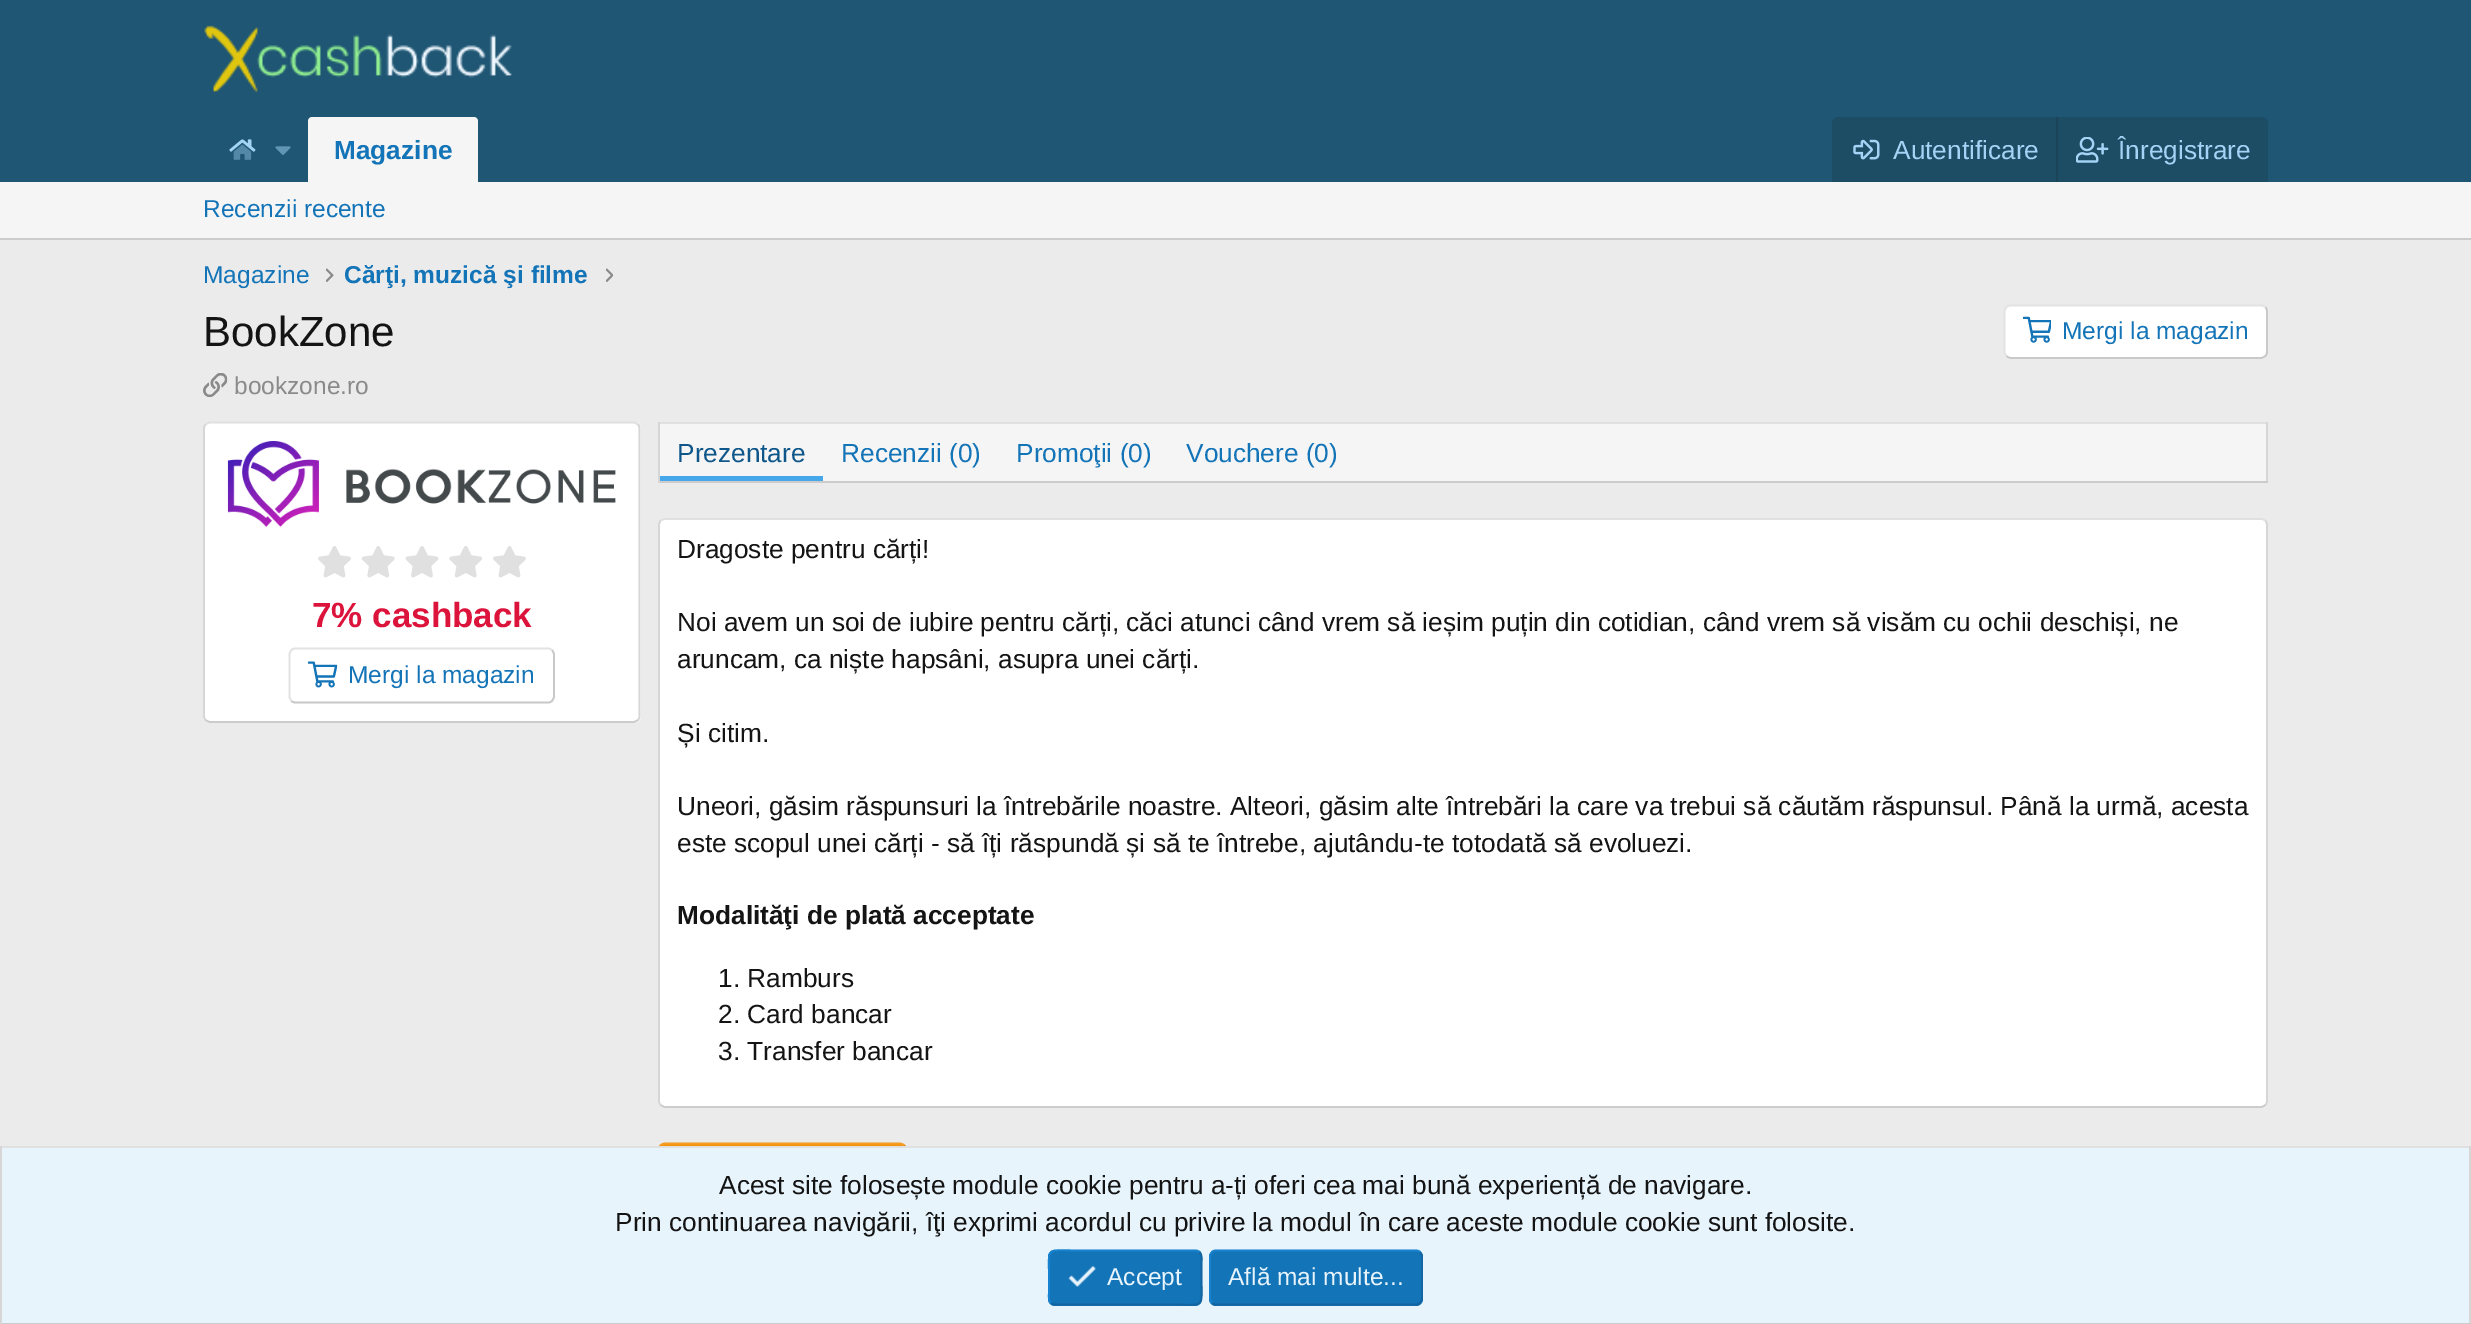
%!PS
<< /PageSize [2471 1324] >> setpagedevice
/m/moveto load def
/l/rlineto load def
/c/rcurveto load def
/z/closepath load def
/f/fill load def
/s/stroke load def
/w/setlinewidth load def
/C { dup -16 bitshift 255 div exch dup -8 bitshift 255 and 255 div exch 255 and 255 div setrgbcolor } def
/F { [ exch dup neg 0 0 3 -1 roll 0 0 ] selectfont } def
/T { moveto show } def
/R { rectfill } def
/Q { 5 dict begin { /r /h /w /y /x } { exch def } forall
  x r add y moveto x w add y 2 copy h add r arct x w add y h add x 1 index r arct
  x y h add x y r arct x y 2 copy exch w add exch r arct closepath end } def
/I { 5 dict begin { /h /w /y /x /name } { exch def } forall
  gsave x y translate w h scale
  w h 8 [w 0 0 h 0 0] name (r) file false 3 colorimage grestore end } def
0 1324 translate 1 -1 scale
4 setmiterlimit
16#EBEBEB C
0 0 2471 1324 R
16#1F5673 C
0 0 2471 182 R
(1.rgb) 204 25 308 68 I
(2.rgb) 229 139 27 21 I
(3.rgb) 275 146 16 9 I
16#F5F5F5 C
312 117 m 162 0 l 2 0 4 2 4 4 c 0 61 l -170 0 l 0 -61 l 0 -2 2 -4 4 -4 c z f
/LiberationSans-Bold 26.25 F
16#1474B8 C
(Magazine) 334 159 T
16#1D4C65 C
1839 117 m 422 0 l 4 0 7 3 7 7 c 0 58 l -436 0 l 0 -58 l 0 -4 3 -7 7 -7 c z f
(4.rgb) 1853 139 27 21 I
/LiberationSans-Regular 26.25 F
16#A3D4F5 C
(Autentificare) 1893 159 T
16#1C4459 C
2056 117 2 65 R
(5.rgb) 2076 137 33 26 I
16#A3D4F5 C
(Înregistrare) 2118 159 T
16#F5F5F5 C
0 182 2471 56 R
16#CCCCCC C
0 238 2471 2 R
/LiberationSans-Regular 24.5 F
16#1474B8 C
(Recenzii recente) 203 217 T
(Magazine) 203 283 T
(6.rgb) 326 268 8 14 I
/LiberationSans-Bold 24.5 F
(Cărţi, muzică şi filme) 344 283 T
(7.rgb) 606 268 7 14 I
/LiberationSans-Regular 42 F
16#141414 C
(BookZone) 203 346 T
16#FFFFFF C
2004 305 264 54 7 Q f
16#C9C9C9 C
1.8 w
2265.5 307 m 1 1.5 1.5 3 1.5 4.5 c 0 40.5 l 0 1.5 -.5 3 -1.5 4 c -1.5 1 -3 2 -4.5 2 c -250 0 l -2 0 -3.5 -1 -4.5 -2 c s
16#E3E3E3 C
2006.5 356 m -1 -1 -2 -2.5 -2 -4 c 0 -40.5 l 0 -1.5 1 -3 2 -4.5 c 1 -1 2.5 -1.5 4.5 -1.5 c 250 0 l 1.5 0 3 .5 4.5 1.5 c s
(8.rgb) 2023 316 28 27 I
/LiberationSans-Regular 24.5 F
16#1474B8 C
(Mergi la magazin) 2062 339 T
(9.rgb) 203 373 25 24 I
16#8A8A8A C
(bookzone.ro) 234 394 T
16#FFFFFF C
203 422 438 301 7 Q f
16#E0E0E0 C
205.5 424.5 m 1.5 -1 3 -2 4.5 -2 c 423.5 0 l 1.5 0 3 1 4.5 2 c s
16#D6D6D6 C
638 424.5 m 1 1 1.5 2.5 1.5 4.5 c 0 287 l 0 1.5 -.5 3 -1.5 4 c s
16#CCCCCC C
638 720 m -1.5 1 -3 2 -4.5 2 c -423.5 0 l -1.5 0 -3 -1 -4.5 -2 c s
16#D6D6D6 C
205.5 720 m -1 -1 -1.5 -2.5 -1.5 -4 c 0 -287 l 0 -2 .5 -3.5 1.5 -4.5 c s
(10.rgb) 227 441 389 86 I
(11.rgb) 318 546 33 32 I
(12.rgb) 361 546 34 32 I
(13.rgb) 405 546 34 32 I
(14.rgb) 449 546 33 32 I
(11.rgb) 493 546 33 32 I
/LiberationSans-Bold 35 F
16#DC143C C
(7% cashback) 312 627 T
16#C9C9C9 C
552 650 m 1 1.5 2 3 2 4.5 c 0 42 l 0 1.5 -1 3 -2 4.5 c -1 1 -2.5 1.5 -4 1.5 c -252 0 l -2 0 -3.5 -.5 -4.5 -1.5 c s
16#E3E3E3 C
291.5 701 m -1 -1.5 -2 -3 -2 -4.5 c 0 -42 l 0 -1.5 1 -3 2 -4.5 c 1 -1 2.5 -1.5 4.5 -1.5 c 252 0 l 1.5 0 3 .5 4 1.5 c s
(15.rgb) 308 661 30 27 I
/LiberationSans-Regular 24.5 F
16#1474B8 C
(Mergi la magazin) 348 683 T
16#F5F5F5 C
660 424 1606 57 R
16#E0E0E0 C
658 422 1610 2 R
16#D6D6D6 C
2266 422 2 61 R
16#CCCCCC C
658 481 1610 2 R
16#D6D6D6 C
658 422 2 61 R
16#47A7EB C
660 476 163 5 R
/LiberationSans-Regular 26.25 F
16#0F578A C
(Prezentare) 677 462 T
16#1474B8 C
(Recenzii \(0\)) 841 462 T
(Promoţii \(0\)) 1016 462 T
(Vouchere \(0\)) 1186 462 T
16#FFFFFF C
658 518 1610 590 7 Q f
16#E0E0E0 C
660.5 520.5 m 1.5 -1 3 -1.5 4.5 -1.5 c 1596 0 l 1.5 0 3 .5 4.5 1.5 c s
16#D6D6D6 C
2265.5 520.5 m 1 1.5 1.5 3 1.5 4.5 c 0 576 l 0 1.5 -.5 3 -1.5 4 c s
16#CCCCCC C
2265.5 1105 m -1.5 1 -3 2 -4.5 2 c -1596 0 l -1.5 0 -3 -1 -4.5 -2 c s
16#D6D6D6 C
660.5 1105 m -1 -1 -1.5 -2.5 -1.5 -4 c 0 -576 l 0 -1.5 .5 -3 1.5 -4.5 c s
16#141414 C
(Dragoste pentru cărți!) 677 558 T
(Noi avem un soi de iubire pentru cărți, căci atunci când vrem să ieșim puțin din cotidian, când vrem să visăm cu ochii deschiși, ne) 677 631 T
(aruncam, ca niște hapsâni, asupra unei cărți.) 677 668 T
(Și citim.) 677 742 T
(Uneori, găsim răspunsuri la întrebările noastre. Alteori, găsim alte întrebări la care va trebui să căutăm răspunsul. Până la urmă, acesta) 677 815 T
(este scopul unei cărți - să îți răspundă și să te întrebe, ajutându-te totodată să evoluezi.) 677 852 T
/LiberationSans-Bold 26.25 F
(Modalităţi de plată acceptate) 677 924 T
/LiberationSans-Regular 26.25 F
(1. Ramburs) 718 987 T
(2. Card bancar) 718 1023 T
(3. Transfer bancar) 718 1060 T
16#F2930D C
658 1143 249 54 7 Q f
16#DA840B C
904 1145.5 m 1 1 1.5 2.5 1.5 4.5 c 0 40 l 0 1.5 -.5 3 -1.5 4.5 c -1.5 1 -3 1.5 -4.5 1.5 c -234.5 0 l -1.5 0 -3 -.5 -4.5 -1.5 c s
16#F49D25 C
660.5 1194.5 m -1 -1.5 -1.5 -3 -1.5 -4.5 c 0 -40 l 0 -2 .5 -3.5 1.5 -4.5 c 1.5 -1 3 -2 4.5 -2 c 234.5 0 l 1.5 0 3 1 4.5 2 c s
16#E8F4FC C
2 1148 2467 175 R
16#E0E0E0 C
0 1146 2471 2 R
16#D6D6D6 C
2469 1146 2 178 R
16#CCCCCC C
0 1323 2471 1 R
16#D6D6D6 C
0 1146 2 178 R
16#141414 C
(Acest site folosește module cookie pentru a-ți oferi cea mai bună experiență de navigare.) 719 1194 T
(Prin continuarea navigării, îţi exprimi acordul cu privire la modul în care aceste module cookie sunt folosite.) 615 1231 T
16#1474B8 C
1048 1250 154 56 7 Q f
16#1265A1 C
1199.5 1252 m 3 3 2 8 2 11.5 c 0 14 l 0 32 4.5 27 -29.5 27 c -117 0 l -1.5 0 -3 -.5 -4 -1.5 c s
16#1782CF C
1051 1303 m -3 -3 -2 -8 -2 -11.5 c 0 -14 l 0 -32 -4.5 -27 29.5 -27 c 116.5 0 l 2 0 3.5 .5 4.5 1.5 c s
(16.rgb) 1068 1265 28 22 I
/LiberationSans-Regular 24.5 F
16#E8F4FC C
(Accept) 1107 1285 T
16#1474B8 C
1209 1250 214 56 7 Q f
16#1265A1 C
1420 1252 m 1 1.5 2 3 2 4.5 c 0 42 l 0 1.5 -1 3 -2 4.5 c -1 1 -2.5 1.5 -4 1.5 c -200 0 l -1.5 0 -3 -.5 -4 -1.5 c s
16#1782CF C
1212 1303 m -1 -1.5 -2 -3 -2 -4.5 c 0 -42 l 0 -1.5 1 -3 2 -4.5 c 1 -1 2.5 -1.5 4 -1.5 c 200 0 l 1.5 0 3 .5 4 1.5 c s
16#E8F4FC C
(Află mai multe...) 1228 1285 T
showpage
